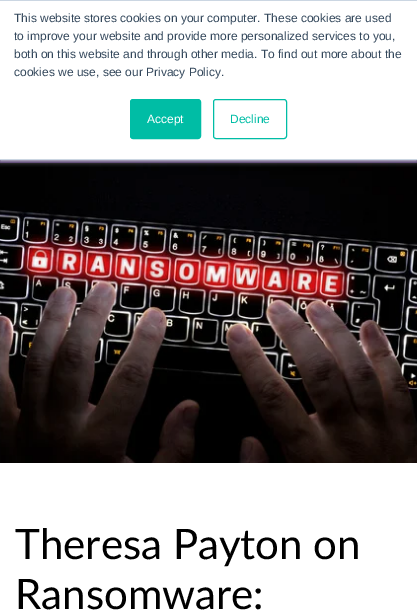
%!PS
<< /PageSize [417 616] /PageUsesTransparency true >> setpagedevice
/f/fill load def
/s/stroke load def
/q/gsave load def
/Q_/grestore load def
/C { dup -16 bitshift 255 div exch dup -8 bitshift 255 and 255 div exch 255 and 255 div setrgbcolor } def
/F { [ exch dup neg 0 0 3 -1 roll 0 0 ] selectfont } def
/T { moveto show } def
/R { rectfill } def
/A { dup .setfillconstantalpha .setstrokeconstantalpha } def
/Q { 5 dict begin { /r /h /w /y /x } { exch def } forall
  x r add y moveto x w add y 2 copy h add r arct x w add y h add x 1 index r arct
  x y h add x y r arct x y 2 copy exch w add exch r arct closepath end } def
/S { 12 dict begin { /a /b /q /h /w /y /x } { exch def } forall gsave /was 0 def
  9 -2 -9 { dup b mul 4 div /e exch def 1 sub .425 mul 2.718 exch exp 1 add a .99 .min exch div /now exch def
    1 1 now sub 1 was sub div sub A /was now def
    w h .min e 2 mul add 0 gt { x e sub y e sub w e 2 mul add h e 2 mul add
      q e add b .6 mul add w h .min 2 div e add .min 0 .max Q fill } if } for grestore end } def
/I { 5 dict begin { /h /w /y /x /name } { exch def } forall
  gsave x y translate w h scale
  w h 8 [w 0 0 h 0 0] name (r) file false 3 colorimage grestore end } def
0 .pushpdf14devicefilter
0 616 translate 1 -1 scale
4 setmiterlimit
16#FFFFFF C
0 0 417 616 R
16#2F1049 C
0 160 417 3 R
(1.rgb) 0 163 417 300 I
16#EAF0F6 C
0 1 417 160 0 2.5 1 S
16#FFFFFF C
0 1 417 158 R
16#CBD6E2 C
0 0 417 1 R
0 159 417 1 R
/LiberationSans-Regular 12 F
16#33475B C
(This website stores cookies on your computer. These cookies are used) 14 22 T
(to improve your website and provide more personalized services to you,) 14 40 T
(both on this website and through other media. To find out more about the) 14 58 T
(cookies we use, see our Privacy Policy.) 14 76 T
16#00BDA5 C
130.5 99.5 70 39 2.5 Q q f Q_
s
16#FFFFFF C
(Accept) 147 123 T
16#00BDA5 C
213.5 99.5 73 39 2.5 Q s
(Decline) 230 123 T
/Lato-Regular 42 F
16#000000 C
(Theresa Payton on) 15 559 T
(Ransomware:) 15 609 T
.poppdf14devicefilter showpage
